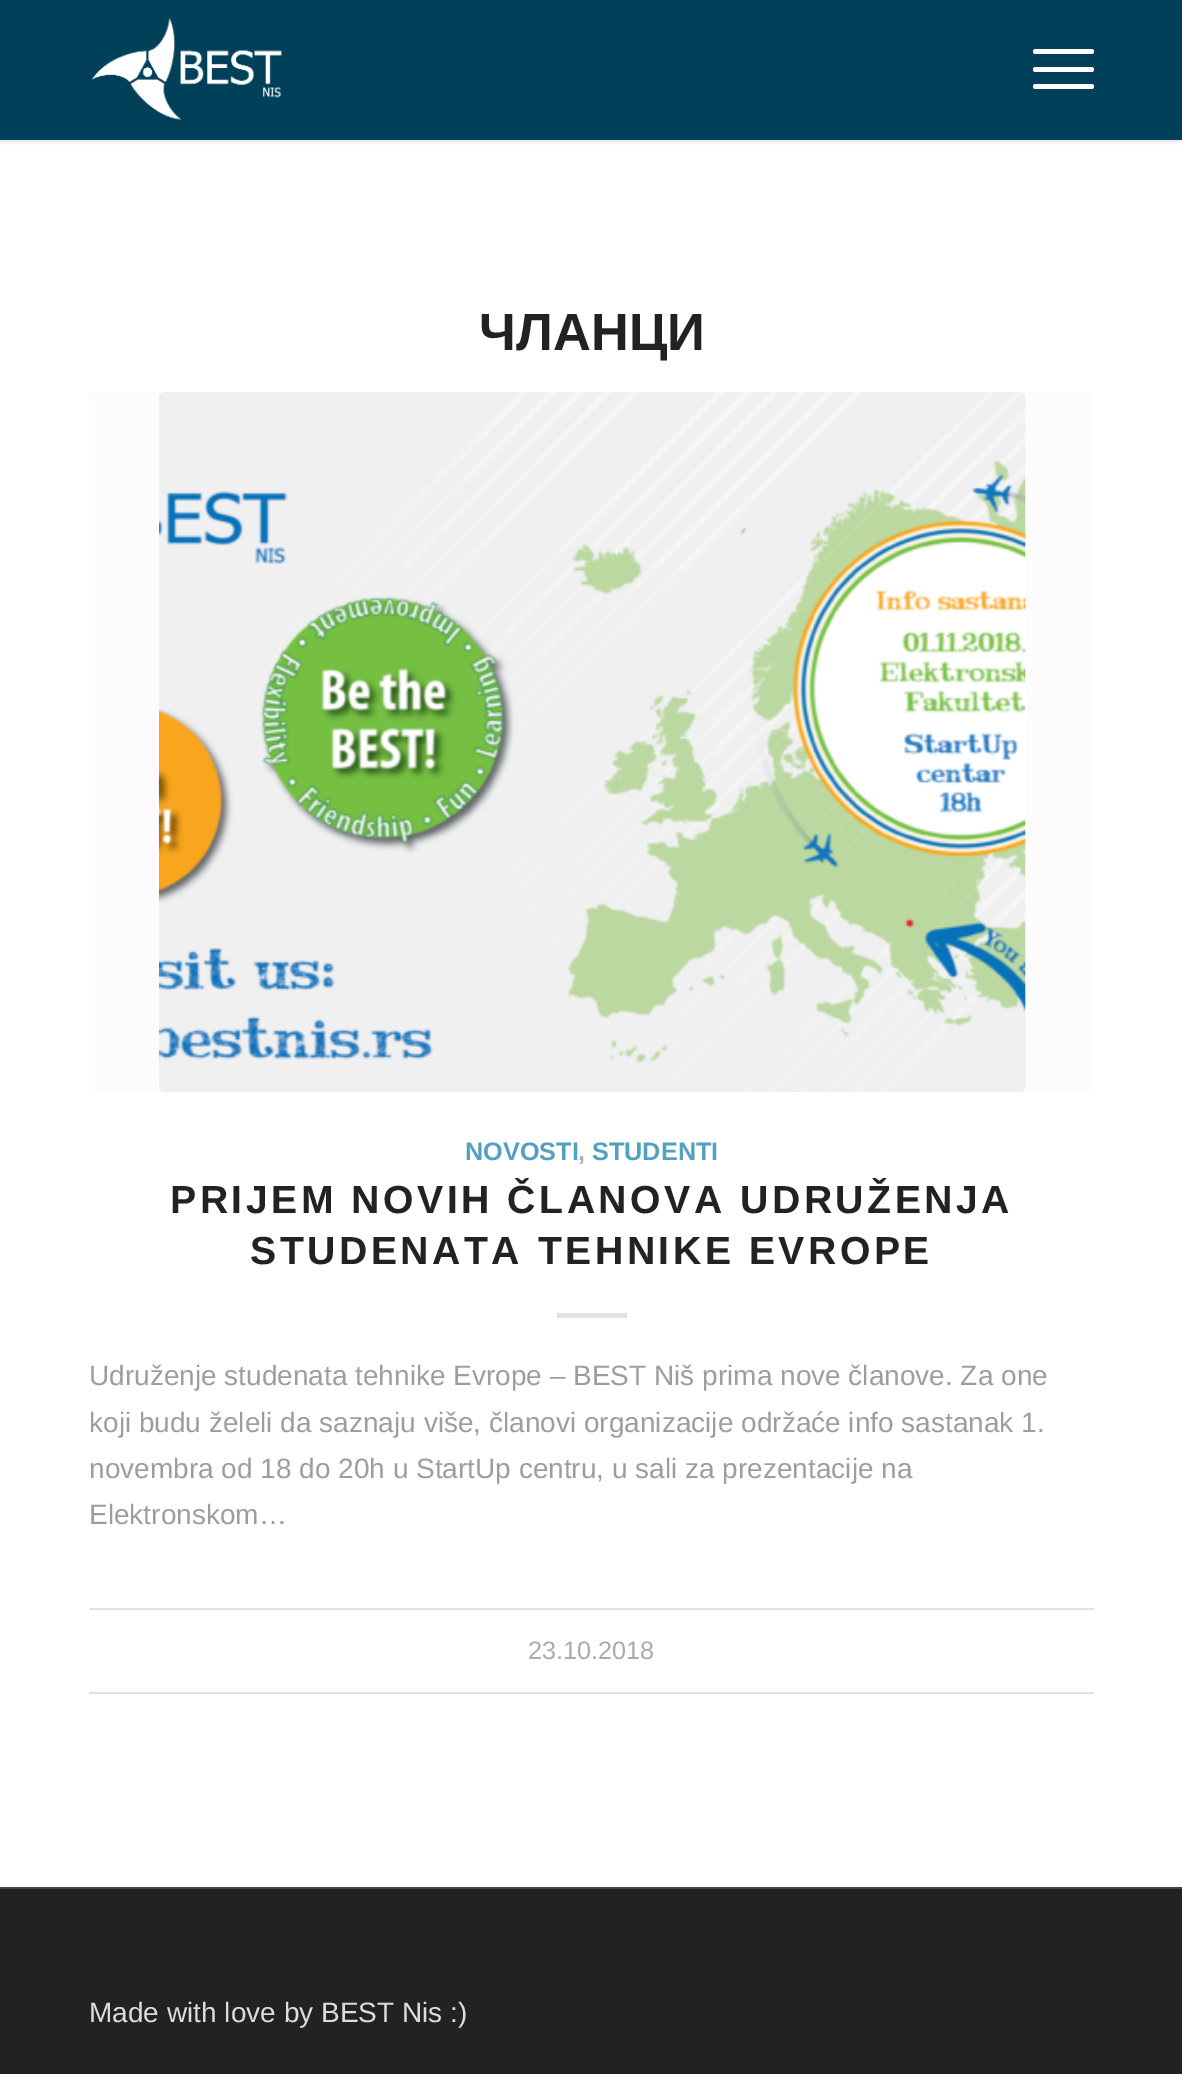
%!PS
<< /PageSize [1182 2074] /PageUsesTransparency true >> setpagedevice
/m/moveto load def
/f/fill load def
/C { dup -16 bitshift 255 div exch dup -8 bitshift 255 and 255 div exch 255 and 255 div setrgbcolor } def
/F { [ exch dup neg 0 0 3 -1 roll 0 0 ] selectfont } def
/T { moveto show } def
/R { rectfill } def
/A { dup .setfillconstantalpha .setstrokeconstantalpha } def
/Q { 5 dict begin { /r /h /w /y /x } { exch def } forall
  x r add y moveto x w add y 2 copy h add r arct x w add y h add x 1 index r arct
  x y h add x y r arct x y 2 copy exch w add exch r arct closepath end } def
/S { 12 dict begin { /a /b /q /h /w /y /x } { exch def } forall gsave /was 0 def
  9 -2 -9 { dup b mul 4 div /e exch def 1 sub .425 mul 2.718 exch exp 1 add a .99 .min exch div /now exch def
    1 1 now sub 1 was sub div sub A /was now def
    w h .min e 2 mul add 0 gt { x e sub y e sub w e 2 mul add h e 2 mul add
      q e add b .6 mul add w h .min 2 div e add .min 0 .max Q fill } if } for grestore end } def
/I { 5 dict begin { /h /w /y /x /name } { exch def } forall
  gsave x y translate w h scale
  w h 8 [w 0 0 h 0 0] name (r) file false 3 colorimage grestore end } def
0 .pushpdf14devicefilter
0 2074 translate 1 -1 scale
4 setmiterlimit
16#FFFFFF C
0 0 1182 2074 R
16#000000 C
-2 -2 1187 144 0 2 .1 S
16#004059 C
0 0 1182 140 R
(1.rgb) 91 18 191 102 I
16#FFFFFF C
1033 67 61 5 2.5 Q f
1033 49 61 5 2.5 Q f
1033 84 61 5 2.5 Q f
/LiberationSans-Bold 52.5 F
16#222222 C
(ЧЛАНЦИ) 479 350 T
16#FCFCFC C
89 392 1005 700 5 Q f
(2.rgb) 159 392 867 700 I
/LiberationSans-Bold 25.25 F
16#54A1BF C
(NOVOSTI) 465 1160 T
16#ABABAB C
(,) 578 1160 T
16#54A1BF C
(STUDENTI) 592 1160 T
/LiberationSans-Bold 39.2 F
16#222222 C
170 1213 m 3.5 0 (PRIJEM NOVIH ČLANOVA UDRUŽENJA) ashow
250 1264 m 3.5 0 (STUDENATA TEHNIKE EVROPE) ashow
16#E1E1E1 C
557 1313 70 5 R
/LiberationSans-Regular 28 F
16#9D9D9D C
(Udruženje studenata tehnike Evrope – BEST Niš prima nove članove. Za one) 89 1385 T
(koji budu želeli da saznaju više, članovi organizacije održaće info sastanak 1.) 89 1432 T
(novembra od 18 do 20h u StartUp centru, u sali za prezentacije na) 89 1478 T
(Elektronskom…) 89 1524 T
16#E1E1E1 C
89 1608 1005 2 R
89 1692 1005 2 R
/LiberationSans-Regular 25.25 F
16#ABABAB C
(23.10.2018) 528 1659 T
16#222222 C
0 1889 1182 185 R
16#444444 C
0 1887 1182 2 R
/LiberationSans-Regular 28 F
16#DDDDDD C
(Made with love by BEST Nis :\)) 89 2022 T
.poppdf14devicefilter showpage
